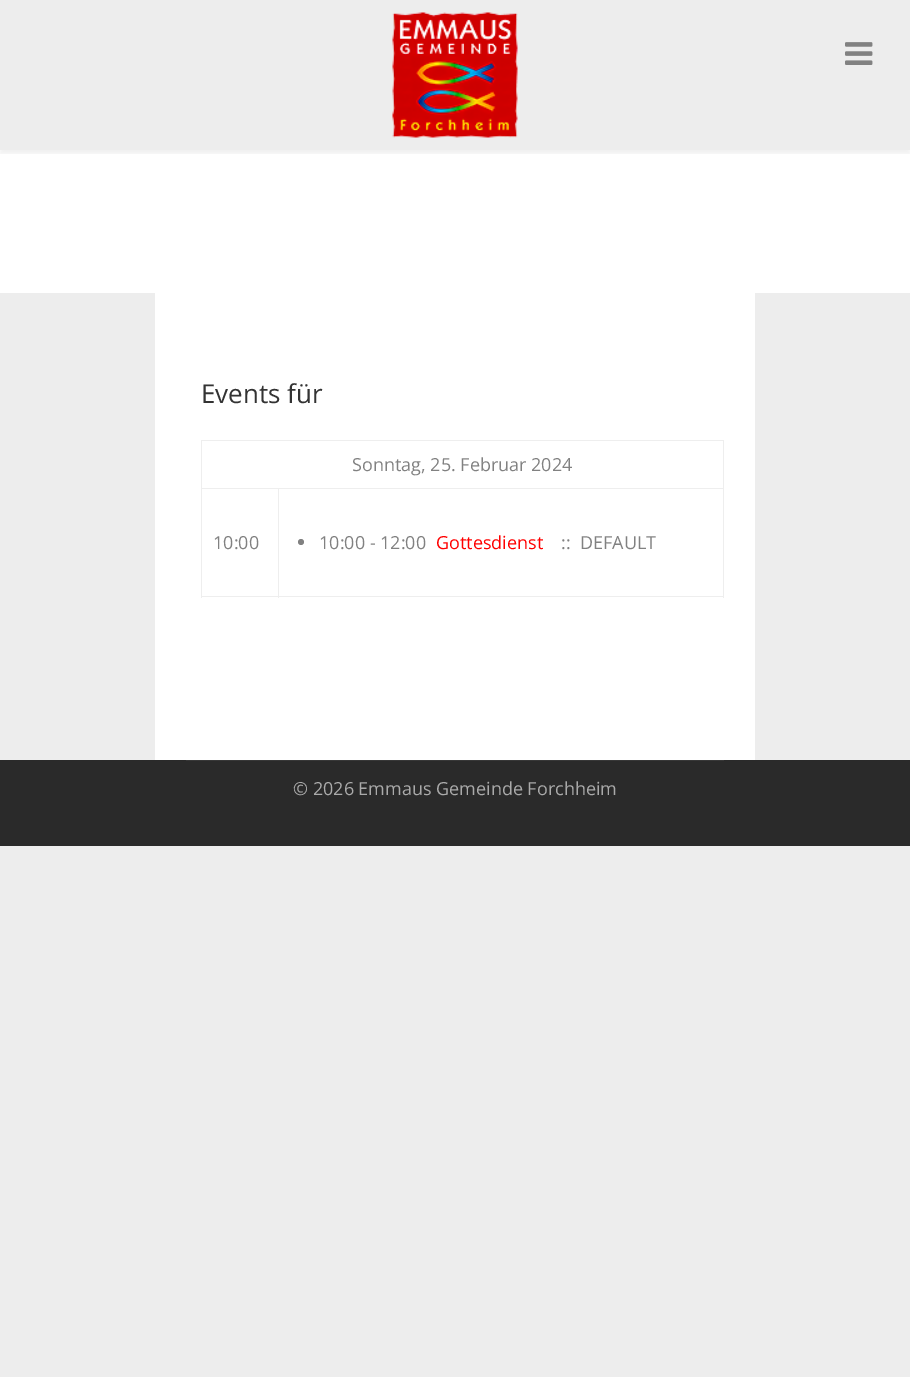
%!PS
<< /PageSize [910 1377] /PageUsesTransparency true >> setpagedevice
/f/fill load def
/q/gsave load def
/Q_/grestore load def
/C { dup -16 bitshift 255 div exch dup -8 bitshift 255 and 255 div exch 255 and 255 div setrgbcolor } def
/F { [ exch dup neg 0 0 3 -1 roll 0 0 ] selectfont } def
/T { moveto show } def
/R { rectfill } def
/A { dup .setfillconstantalpha .setstrokeconstantalpha } def
/O { newpath 0 360 arc closepath } def
/Q { 5 dict begin { /r /h /w /y /x } { exch def } forall
  x r add y moveto x w add y 2 copy h add r arct x w add y h add x 1 index r arct
  x y h add x y r arct x y 2 copy exch w add exch r arct closepath end } def
/S { 12 dict begin { /a /b /q /h /w /y /x } { exch def } forall gsave /was 0 def
  9 -2 -9 { dup b mul 4 div /e exch def 1 sub .425 mul 2.718 exch exp 1 add a .99 .min exch div /now exch def
    1 1 now sub 1 was sub div sub A /was now def
    w h .min e 2 mul add 0 gt { x e sub y e sub w e 2 mul add h e 2 mul add
      q e add b .6 mul add w h .min 2 div e add .min 0 .max Q fill } if } for grestore end } def
/I { 5 dict begin { /h /w /y /x /name } { exch def } forall
  gsave x y translate w h scale
  w h 8 [w 0 0 h 0 0] name (r) file false 3 colorimage grestore end } def
0 .pushpdf14devicefilter
0 1377 translate 1 -1 scale
4 setmiterlimit
16#EDEDED C
0 0 910 1377 R
16#FFFFFF C
0 150 910 143 R
q
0 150 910 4 rectclip
16#000000 C
0 4 910 150 0 2 .05 S
Q_
(1.rgb) 392 12 126 126 I
(2.rgb) 845 42 28 23 I
155 293 600 467 R
/OpenSans-Regular 26 F
16#333333 C
(Events für) 201 403 T
16#EEEEEE C
201 440 523 1 R
723 440 1 158 R
201 596 523 1 R
201 440 1 158 R
/OpenSans-Regular 18 F
16#818181 C
(Sonntag, 25. Februar 2024) 352 471 T
16#EEEEEE C
278 488 446 1 R
278 488 1 110 R
201 488 78 1 R
16#818181 C
(10:00) 213 549 T
301 542 3 O f
(10:00 - 12:00) 319 549 T
16#FF0000 C
(Gottesdienst) 436 549 T
16#818181 C
(::  DEFAULT) 561 549 T
16#2A2A2A C
0 760 910 86 R
16#373737 C
186 760 538 1 R
16#AAAAAA C
(© 2026 Emmaus Gemeinde Forchheim) 293 795 T
.poppdf14devicefilter showpage
